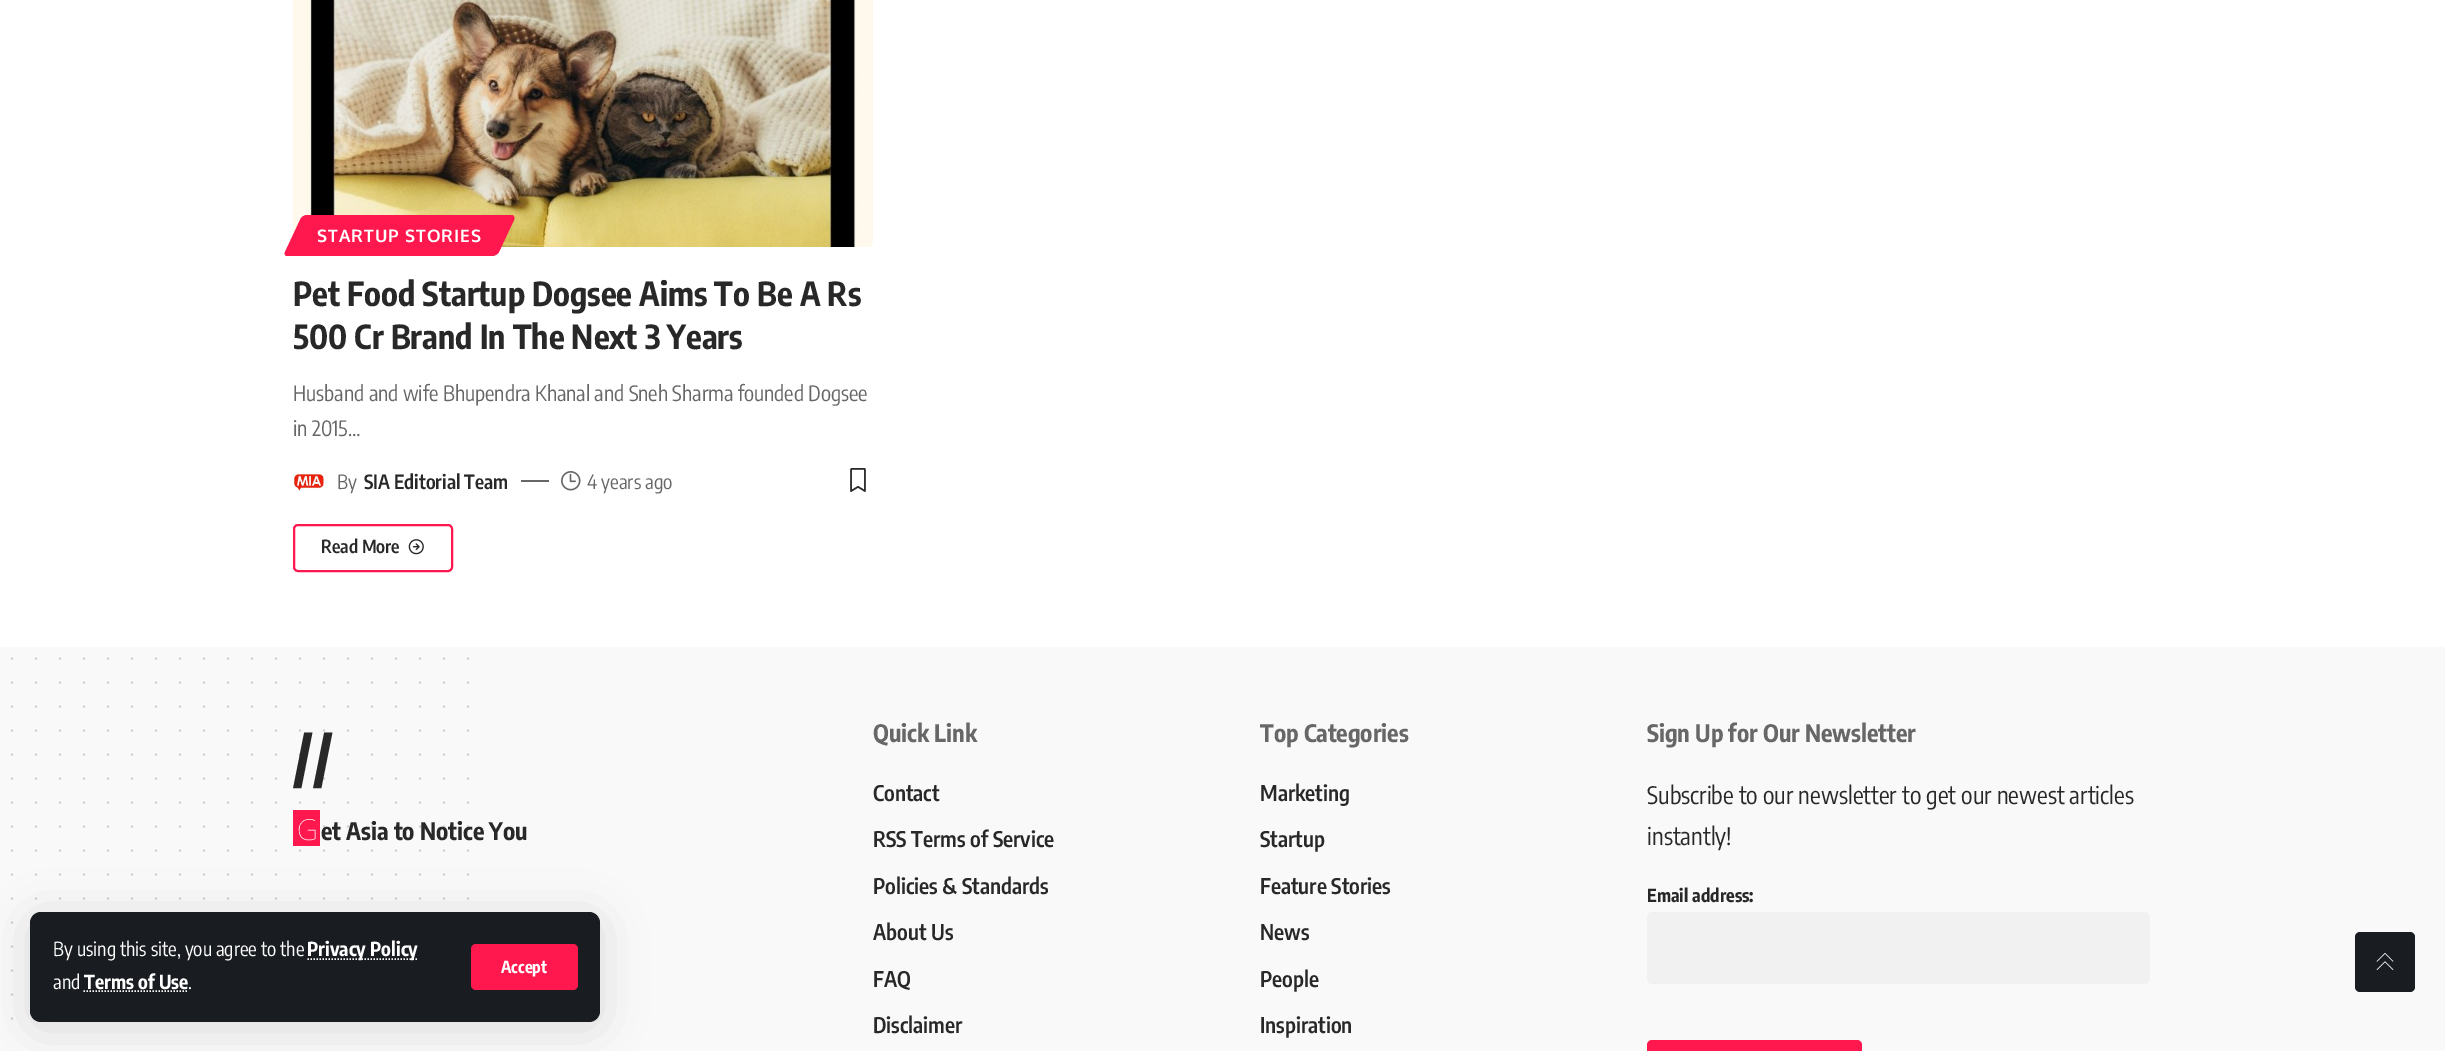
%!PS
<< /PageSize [2445 1051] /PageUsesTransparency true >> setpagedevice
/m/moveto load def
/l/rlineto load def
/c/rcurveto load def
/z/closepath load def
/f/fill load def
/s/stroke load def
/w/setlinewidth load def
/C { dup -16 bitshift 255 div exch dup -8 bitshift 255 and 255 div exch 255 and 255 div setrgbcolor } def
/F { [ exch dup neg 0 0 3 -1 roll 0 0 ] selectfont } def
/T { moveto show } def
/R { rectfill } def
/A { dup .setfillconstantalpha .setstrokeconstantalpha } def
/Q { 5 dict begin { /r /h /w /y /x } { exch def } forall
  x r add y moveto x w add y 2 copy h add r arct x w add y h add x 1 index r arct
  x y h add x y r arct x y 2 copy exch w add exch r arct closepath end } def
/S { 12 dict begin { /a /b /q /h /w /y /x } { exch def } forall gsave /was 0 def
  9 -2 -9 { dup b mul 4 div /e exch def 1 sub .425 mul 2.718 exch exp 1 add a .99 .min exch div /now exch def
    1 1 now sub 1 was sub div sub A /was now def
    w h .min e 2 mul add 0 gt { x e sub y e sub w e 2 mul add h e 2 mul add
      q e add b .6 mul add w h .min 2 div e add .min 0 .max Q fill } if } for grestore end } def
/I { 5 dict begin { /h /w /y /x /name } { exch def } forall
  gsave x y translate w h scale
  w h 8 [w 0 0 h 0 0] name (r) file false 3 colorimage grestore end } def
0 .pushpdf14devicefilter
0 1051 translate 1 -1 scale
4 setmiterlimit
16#FFFFFF C
0 0 2445 1051 R
(1.rgb) 292 0 581 247 I
16#FF184E C
307 215 m 204 0 l 3 0 4 2 3 5 c -15 32 l -1 2 -4 4 -7 4 c -205 0 l -2 0 -3 -2 -2 -4 c 15 -32 l 1 -3 4 -5 7 -5 c z f
/Oxygen-Bold 17.25 F
16#FFFFFF C
317 242 m 1 0 (STARTUP STORIES) ashow
/EncodeSansCondensed-Bold 33 F
16#282828 C
(Pet Food Startup Dogsee Aims To Be A Rs) 293 306 T
(500 Cr Brand In The Next 3 Years) 293 349 T
/EncodeSansCondensed-Regular 21 F
16#676767 C
(Husband and wife Bhupendra Khanal and Sneh Sharma founded Dogsee) 293 401 T
(in 2015…) 293 436 T
(2.rgb) 293 473 31 18 I
/EncodeSansCondensed-Regular 19.5 F
(By) 337 489 T
/EncodeSansCondensed-SemiBold 19.5 F
16#282828 C
(SIA Editorial Team) 364 489 T
16#666666 C
521 480 28 2 R
(3.rgb) 561 471 20 20 I
/EncodeSansCondensed-Regular 19.5 F
16#676767 C
(4 years ago) 587 489 T
(4.rgb) 850 468 16 24 I
16#FF184E C
2 w
294 525 158 46 4 Q s
/EncodeSansCondensed-SemiBold 18 F
16#282828 C
(Read More) 321 553 T
(5.rgb) 408 539 16 16 I
16#F9F9F9 C
0 647 2445 404 R
16#CFCFCF C
2.2 w
1 setlinecap
[0 24] 0 setdash
12 658.5 m 456.3 0 l s
12 682.5 m 456.3 0 l s
12 706.5 m 456.3 0 l s
12 730.5 m 456.3 0 l s
12 754.5 m 456.3 0 l s
12 778.5 m 456.3 0 l s
12 802.5 m 456.3 0 l s
12 826.5 m 456.3 0 l s
12 850.5 m 456.3 0 l s
12 874.5 m 456.3 0 l s
12 898.5 m 456.3 0 l s
12 922.5 m 456.3 0 l s
12 946.5 m 456.3 0 l s
12 970.5 m 456.3 0 l s
12 994.5 m 456.3 0 l s
12 1018.5 m 456.3 0 l s
/EncodeSansCondensed-Bold 60 F
16#282828 C
(//) 293 781 T
16#FF184E C
293 810 27 36 R
/NotoSans-Thin 29 F
16#FFFFFF C
(G) 297 840 T
/EncodeSansCondensed-Bold 24 F
16#282828 C
(et Asia to Notice You) 321 840 T
16#676767 C
(Quick Link) 873 742 T
/EncodeSansCondensed-SemiBold 21.5 F
16#282828 C
(Contact) 873 801 T
(RSS Terms of Service) 873 847 T
(Policies & Standards) 873 894 T
(About Us) 873 940 T
(FAQ) 873 987 T
(Disclaimer) 873 1033 T
/EncodeSansCondensed-Bold 24 F
16#676767 C
(Top Categories) 1260 742 T
/EncodeSansCondensed-SemiBold 21.5 F
16#282828 C
(Marketing) 1260 801 T
(Startup) 1260 847 T
(Feature Stories) 1260 894 T
(News) 1260 940 T
(People) 1260 987 T
(Inspiration) 1260 1033 T
/EncodeSansCondensed-Bold 24 F
16#676767 C
(Sign Up for Our Newsletter) 1647 742 T
/EncodeSansCondensed-Regular 24 F
16#282828 C
(Subscribe to our newsletter to get our newest articles) 1647 804 T
(instantly!) 1647 845 T
/EncodeSansCondensed-Bold 18 F
(Email address:) 1647 902 T
16#F1F1F1 C
1647 912 503 72 5 Q f
16#FF184E C
1647 1040 215 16 5 Q f
16#000000 C
30 918 570 110 11 22.5 .12 S
16#191C20 C
30 912 570 110 11 Q f
/EncodeSansCondensed-Regular 19.25 F
16#FFFFFF C
(By using this site, you agree to the) 53 956 T
1.5 w
0 setlinecap
[1.5 1.5] 0 setdash
307.5 959 m 110.5 0 l s
/EncodeSansCondensed-Bold 19.25 F
(Privacy Policy) 307 956 T
/EncodeSansCondensed-Regular 19.25 F
(and) 53 989 T
/EncodeSansCondensed-Bold 19.25 F
(Terms of Use) 84 989 T
83.5 991 m 104 0 l s
/EncodeSansCondensed-Regular 19.25 F
(.) 188 989 T
16#FF184E C
471 944 107 46 5 Q f
/EncodeSansCondensed-Bold 16.5 F
16#FFFFFF C
(Accept) 501 973 T
16#191C20 C
2355 932 60 60 5 Q f
(6.rgb) 2376 953 18 17 I
.poppdf14devicefilter showpage
